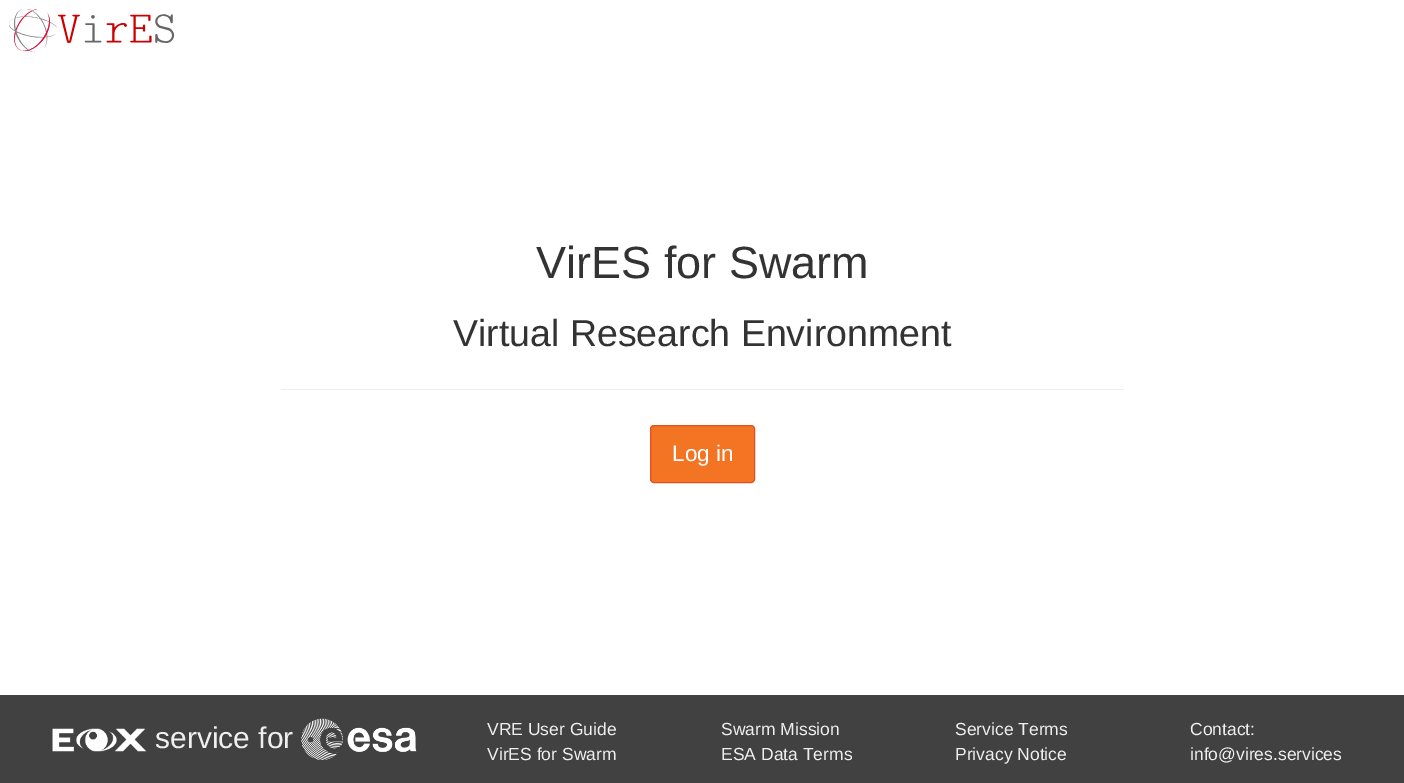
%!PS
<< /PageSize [1404 783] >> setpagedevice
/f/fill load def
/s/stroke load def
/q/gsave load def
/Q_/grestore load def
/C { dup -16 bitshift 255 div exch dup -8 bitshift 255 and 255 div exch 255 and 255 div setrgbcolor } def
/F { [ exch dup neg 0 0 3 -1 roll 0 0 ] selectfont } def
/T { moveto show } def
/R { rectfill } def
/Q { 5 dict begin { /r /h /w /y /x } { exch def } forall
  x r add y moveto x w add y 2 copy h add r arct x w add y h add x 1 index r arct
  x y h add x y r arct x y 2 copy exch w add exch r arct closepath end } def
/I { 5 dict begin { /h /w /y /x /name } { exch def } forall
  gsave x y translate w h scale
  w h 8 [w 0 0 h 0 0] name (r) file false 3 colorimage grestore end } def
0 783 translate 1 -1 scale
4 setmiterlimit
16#FFFFFF C
0 0 1404 783 R
(1.rgb) 9 9 166 44 I
/LiberationSans-Regular 45 F
16#333333 C
(VirES for Swarm) 536 278 T
/LiberationSans-Regular 37.5 F
(Virtual Research Environment) 453 346 T
16#EEEEEE C
281 389 843 1 R
16#F37524 C
650.5 425.5 104 57 3.5 Q q f Q_
16#E34F21 C
s
/LiberationSans-Regular 22.5 F
16#FFFFFF C
(Log in) 672 461 T
16#414141 C
0 695 1404 88 R
(2.rgb) 52 728 95 24 I
/LiberationSans-Regular 30 F
16#EFEFEF C
(service for) 155 748 T
(3.rgb) 301 718 116 42 I
/LiberationSans-Regular 17.5 F
(VRE User Guide) 487 735 T
(VirES for Swarm) 487 760 T
(Swarm Mission) 721 735 T
(ESA Data Terms) 721 760 T
(Service Terms) 955 735 T
(Privacy Notice) 955 760 T
(Contact:) 1190 735 T
(info@vires.services) 1190 760 T
showpage
